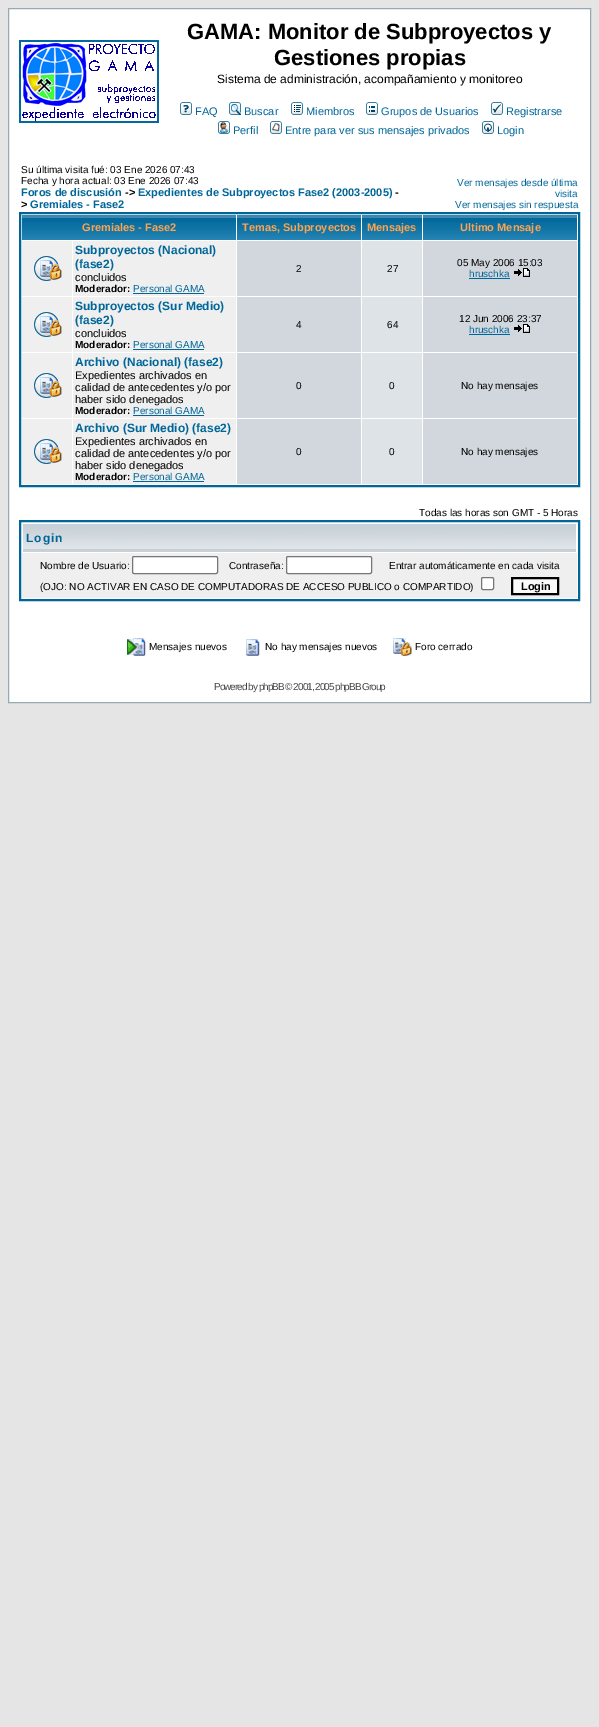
%!PS
<< /PageSize [599 1727] >> setpagedevice
/m/moveto load def
/l/rlineto load def
/z/closepath load def
/f/fill load def
/s/stroke load def
/q/gsave load def
/Q_/grestore load def
/w/setlinewidth load def
/C { dup -16 bitshift 255 div exch dup -8 bitshift 255 and 255 div exch 255 and 255 div setrgbcolor } def
/F { [ exch dup neg 0 0 3 -1 roll 0 0 ] selectfont } def
/T { moveto show } def
/R { rectfill } def
/Q { 5 dict begin { /r /h /w /y /x } { exch def } forall
  x r add y moveto x w add y 2 copy h add r arct x w add y h add x 1 index r arct
  x y h add x y r arct x y 2 copy exch w add exch r arct closepath end } def
/I { 5 dict begin { /h /w /y /x /name } { exch def } forall
  gsave x y translate w h scale
  w h 8 [w 0 0 h 0 0] name (r) file false 3 colorimage grestore end } def
0 1727 translate 1 -1 scale
4 setmiterlimit
16#E5E5E5 C
0 0 599 1727 R
16#FFFFFF C
8.5 8.5 m 582 0 l 0 694 l -582 0 l z q f Q_
16#98AAB1 C
s
(1.rgb) 19 40 140 83 I
/LiberationSans-Bold 22 F
16#000000 C
(GAMA: Monitor de Subproyectos y) 187 39 T
(Gestiones propias) 274 65 T
/LiberationSans-Regular 12 F
(Sistema de administración, acompañamiento y monitoreo) 217 83 T
(2.rgb) 180 102 12 13 I
/LiberationSans-Regular 11 F
16#006699 C
(FAQ) 195 115 T
(3.rgb) 229 102 12 13 I
(Buscar) 244 115 T
(4.rgb) 291 102 12 13 I
(Miembros) 306 115 T
(5.rgb) 366 102 12 13 I
(Grupos de Usuarios) 381 115 T
(6.rgb) 491 102 12 13 I
(Registrarse) 506 115 T
(7.rgb) 218 121 12 13 I
(Perfil) 233 134 T
(8.rgb) 270 121 12 13 I
(Entre para ver sus mensajes privados) 285 134 T
(9.rgb) 482 121 12 13 I
(Login) 497 134 T
/LiberationSans-Regular 10 F
16#000000 C
(Su última visita fué: 03 Ene 2026 07:43) 21 173 T
(Fecha y hora actual: 03 Ene 2026 07:43) 21 184 T
/LiberationSans-Bold 11 F
16#006699 C
(Foros de discusión) 21 196 T
16#000000 C
(->) 125 196 T
16#006699 C
(Expedientes de Subproyectos Fase2 \(2003-2005\)) 138 196 T
16#000000 C
(-) 395 196 T
(>) 21 208 T
16#006699 C
(Gremiales - Fase2) 30 208 T
/LiberationSans-Regular 10 F
(Ver mensajes desde última) 457 186 T
(visita) 555 197 T
(Ver mensajes sin respuesta) 455 208 T
2 w
20 213 559 273 rectstroke
(10.rgb) 22 215 214 25 I
/LiberationSans-Bold 11 F
16#FFA34F C
(Gremiales - Fase2) 82 231 T
(11.rgb) 237 215 124 25 I
(Temas, Subproyectos) 242 231 T
(12.rgb) 362 215 60 25 I
(Mensajes) 367 231 T
(13.rgb) 423 215 154 25 I
(Ultimo Mensaje) 460 231 T
16#EFEFEF C
22 241 50 55 R
(14.rgb) 34 256 28 25 I
73 241 163 55 R
/LiberationSans-Bold 12 F
16#006699 C
(Subproyectos \(Nacional\)) 75 254 T
(\(fase2\)) 75 268 T
/LiberationSans-Regular 11 F
16#000000 C
(concluidos) 75 281 T
/LiberationSans-Bold 10 F
(Moderador:) 75 292 T
/LiberationSans-Regular 10 F
16#006699 C
(Personal GAMA) 133 292 T
133 293 71 1 R
16#D1D7DC C
237 241 124 55 R
16#000000 C
(2) 296 272 T
16#DEE3E7 C
362 241 60 55 R
16#000000 C
(27) 387 272 T
16#D1D7DC C
423 241 154 55 R
16#000000 C
(05 May 2006 15:03) 457 266 T
16#006699 C
(hruschka) 469 277 T
469 278 41 1 R
(15.rgb) 514 268 16 9 I
16#EFEFEF C
22 297 50 55 R
(14.rgb) 34 312 28 25 I
73 297 163 55 R
/LiberationSans-Bold 12 F
16#006699 C
(Subproyectos \(Sur Medio\)) 75 310 T
(\(fase2\)) 75 324 T
/LiberationSans-Regular 11 F
16#000000 C
(concluidos) 75 337 T
/LiberationSans-Bold 10 F
(Moderador:) 75 348 T
/LiberationSans-Regular 10 F
16#006699 C
(Personal GAMA) 133 348 T
133 349 71 1 R
16#D1D7DC C
237 297 124 55 R
16#000000 C
(4) 296 328 T
16#DEE3E7 C
362 297 60 55 R
16#000000 C
(64) 387 328 T
16#D1D7DC C
423 297 154 55 R
16#000000 C
(12 Jun 2006 23:37) 459 322 T
16#006699 C
(hruschka) 469 333 T
469 334 41 1 R
(15.rgb) 514 324 16 9 I
16#EFEFEF C
22 353 50 65 R
(14.rgb) 34 373 28 25 I
73 353 163 65 R
/LiberationSans-Bold 12 F
16#006699 C
(Archivo \(Nacional\) \(fase2\)) 75 366 T
/LiberationSans-Regular 11 F
16#000000 C
(Expedientes archivados en) 75 379 T
(calidad de antecedentes y/o por) 75 391 T
(haber sido denegados) 75 403 T
/LiberationSans-Bold 10 F
(Moderador:) 75 414 T
/LiberationSans-Regular 10 F
16#006699 C
(Personal GAMA) 133 414 T
133 415 71 1 R
16#D1D7DC C
237 353 124 65 R
16#000000 C
(0) 296 389 T
16#DEE3E7 C
362 353 60 65 R
16#000000 C
(0) 389 389 T
16#D1D7DC C
423 353 154 65 R
16#000000 C
(No hay mensajes) 461 389 T
16#EFEFEF C
22 419 50 65 R
(14.rgb) 34 439 28 25 I
73 419 163 65 R
/LiberationSans-Bold 12 F
16#006699 C
(Archivo \(Sur Medio\) \(fase2\)) 75 432 T
/LiberationSans-Regular 11 F
16#000000 C
(Expedientes archivados en) 75 445 T
(calidad de antecedentes y/o por) 75 457 T
(haber sido denegados) 75 469 T
/LiberationSans-Bold 10 F
(Moderador:) 75 480 T
/LiberationSans-Regular 10 F
16#006699 C
(Personal GAMA) 133 480 T
133 481 71 1 R
16#D1D7DC C
237 419 124 65 R
16#000000 C
(0) 296 455 T
16#DEE3E7 C
362 419 60 65 R
16#000000 C
(0) 389 455 T
16#D1D7DC C
423 419 154 65 R
16#000000 C
(No hay mensajes) 461 455 T
(Todas las horas son GMT - 5 Horas) 419 516 T
16#006699 C
20 521 559 79 rectstroke
(16.rgb) 23 524 553 28 I
/LiberationSans-Bold 12 F
26 542 m 1 0 (Login) ashow
16#EFEFEF C
22 553 555 45 R
/LiberationSans-Regular 10 F
16#000000 C
(Nombre de Usuario:) 40 569 T
16#FFFFFF C
132.5 556.5 85 17 1.5 Q q f Q_
16#767676 C
1 w
s
16#000000 C
(Contraseña:) 229 569 T
16#FFFFFF C
286.5 556.5 85 17 1.5 Q q f Q_
16#767676 C
s
16#000000 C
(Entrar automáticamente en cada visita) 389 569 T
(\(OJO: NO ACTIVAR EN CASO DE COMPUTADORAS DE ACCESO PUBLICO o COMPARTIDO\)) 40 590 T
16#FFFFFF C
481.5 577.5 12 12 1.5 Q q f Q_
16#767676 C
s
16#FAFAFA C
512 578 m 46 0 l 0 16 l -46 0 l z q f Q_
16#000000 C
2 w
s
/LiberationSans-Bold 11 F
(Login) 521 590 T
(17.rgb) 127 638 19 18 I
/LiberationSans-Regular 10 F
(Mensajes nuevos) 149 650 T
(18.rgb) 246 639 14 17 I
(No hay mensajes nuevos) 265 650 T
(19.rgb) 393 638 19 18 I
(Foro cerrado) 415 650 T
16#444444 C
214 690 m -1 0 (Powered by phpBB © 2001, 2005 phpBB Group) ashow
showpage
